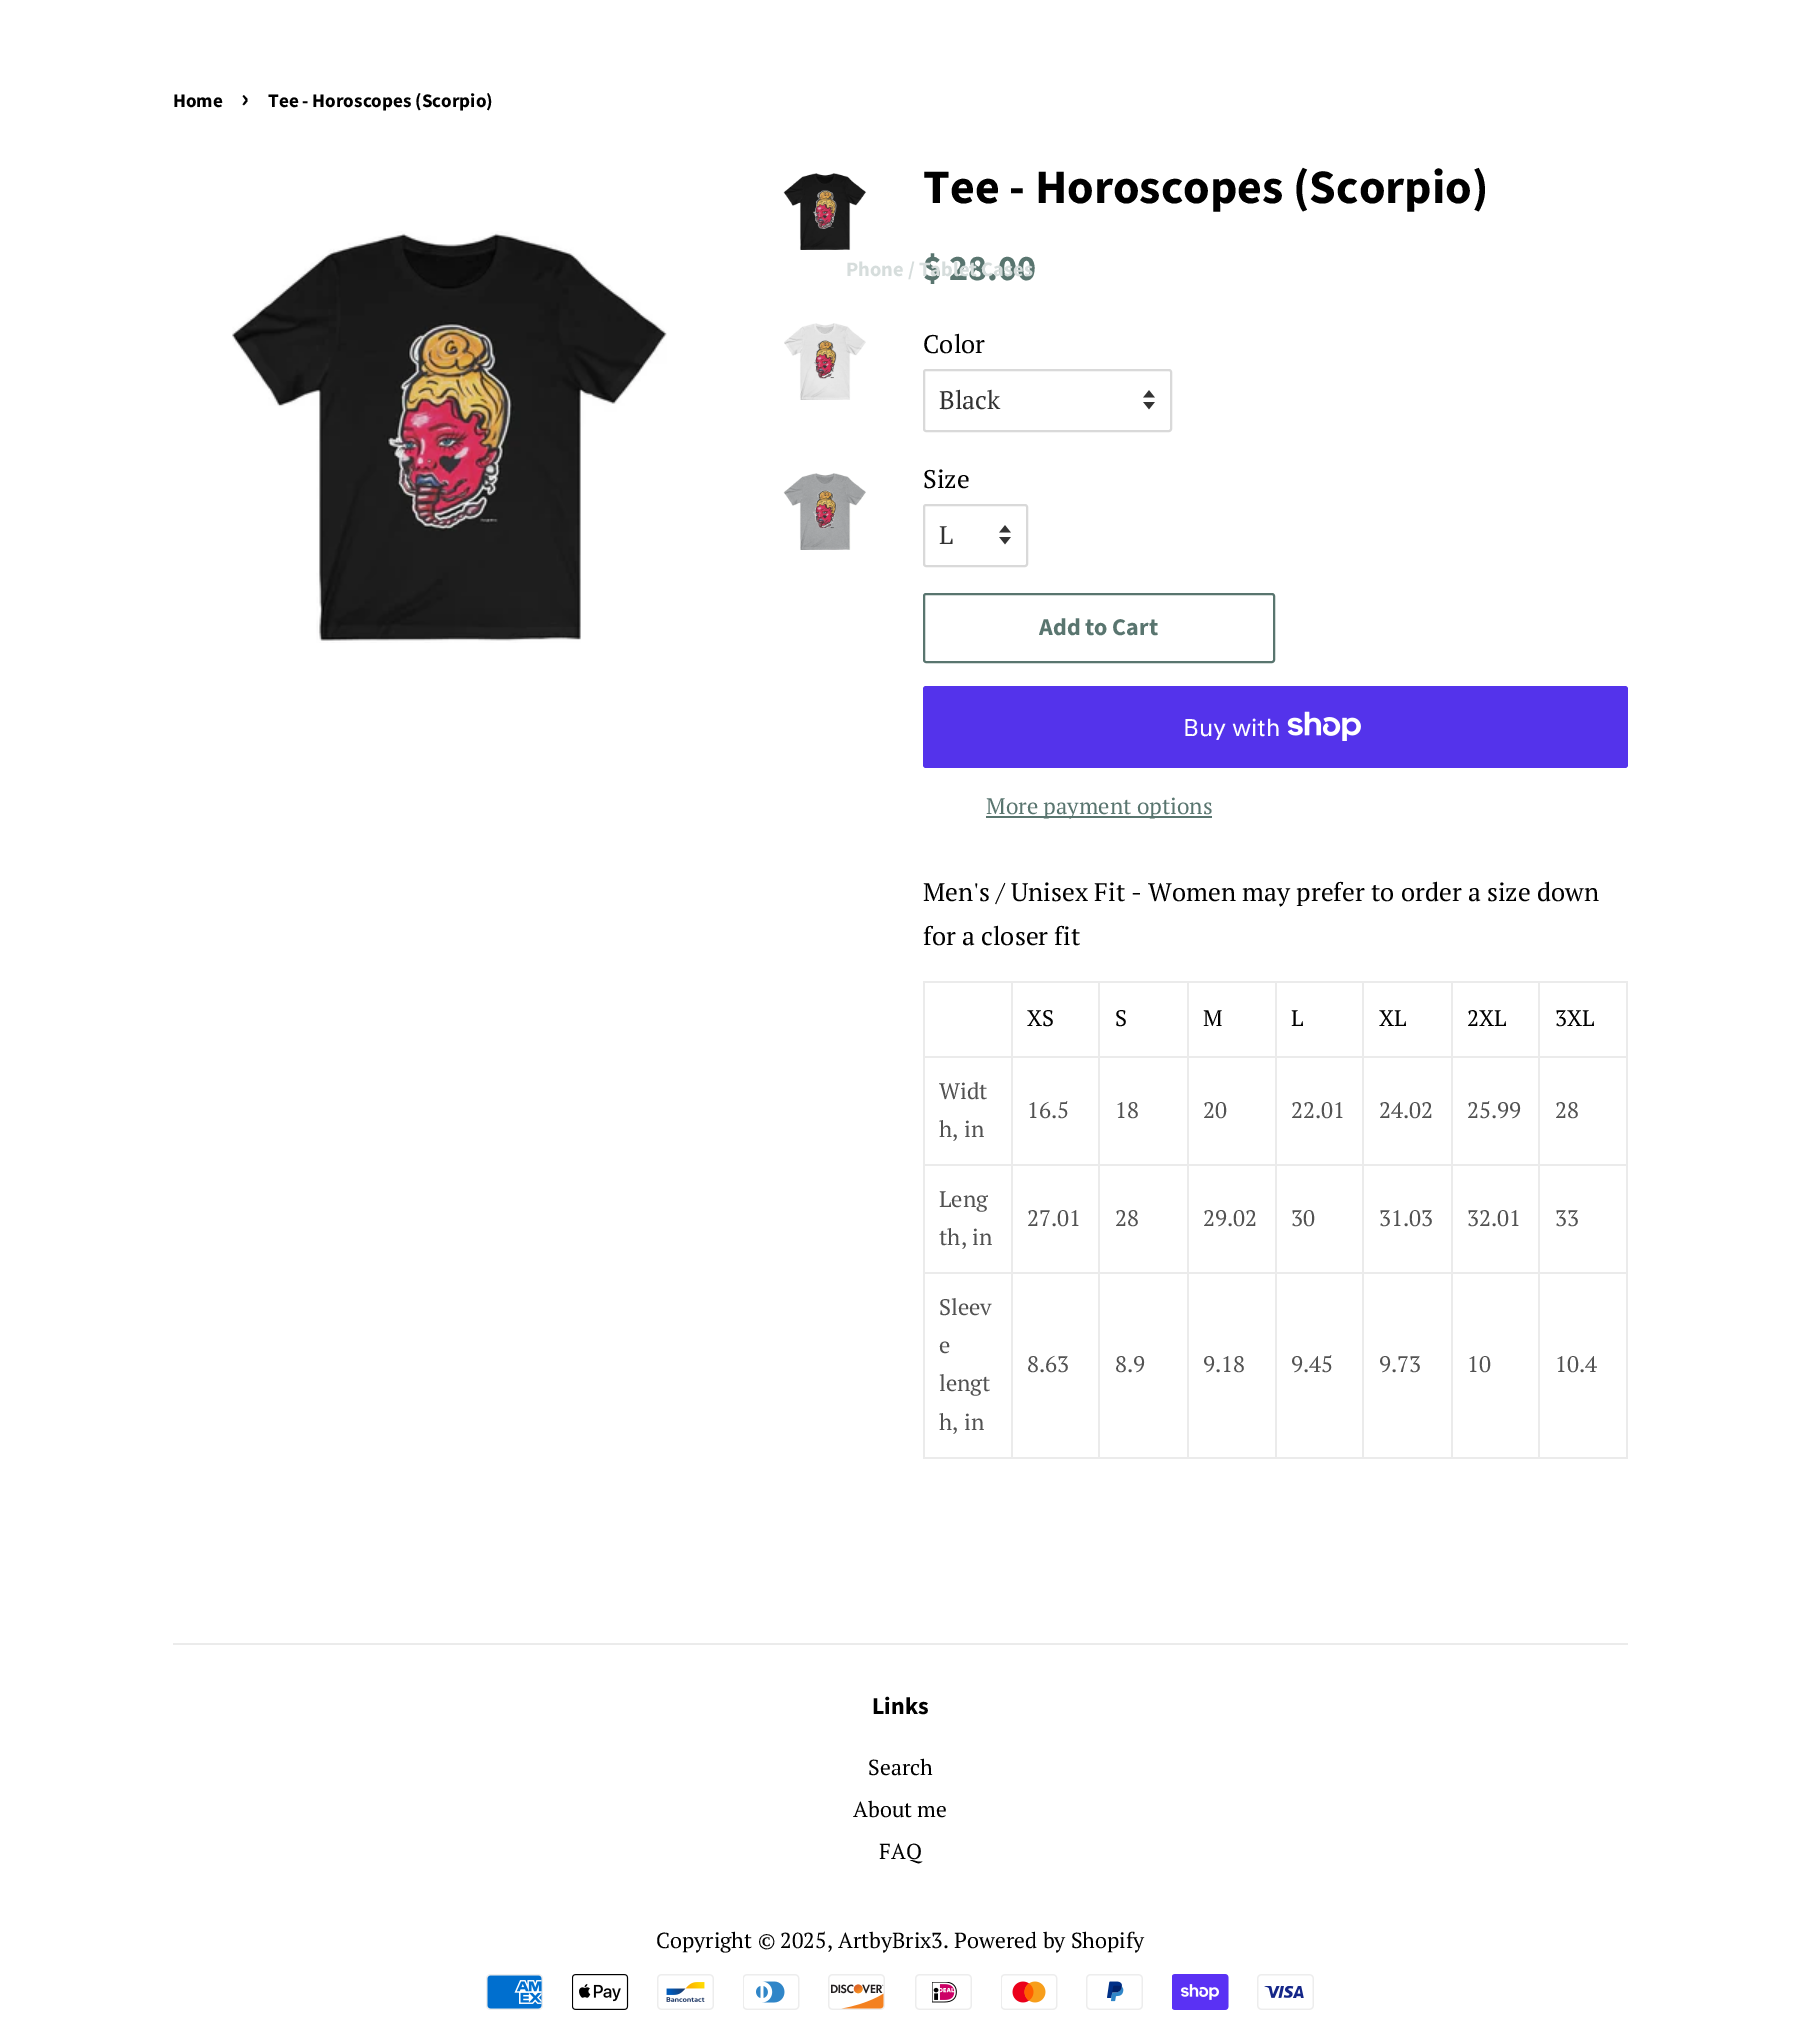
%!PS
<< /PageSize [1800 2041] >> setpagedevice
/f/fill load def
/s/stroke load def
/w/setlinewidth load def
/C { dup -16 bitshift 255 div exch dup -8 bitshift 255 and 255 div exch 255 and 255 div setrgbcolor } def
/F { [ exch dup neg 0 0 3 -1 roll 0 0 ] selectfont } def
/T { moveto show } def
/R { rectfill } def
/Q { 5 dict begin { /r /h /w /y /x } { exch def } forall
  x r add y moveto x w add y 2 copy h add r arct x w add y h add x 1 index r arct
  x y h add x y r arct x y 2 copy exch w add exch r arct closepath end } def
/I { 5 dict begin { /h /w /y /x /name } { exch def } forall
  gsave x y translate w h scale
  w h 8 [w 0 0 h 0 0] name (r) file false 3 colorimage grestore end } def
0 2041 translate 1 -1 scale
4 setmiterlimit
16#FFFFFF C
0 0 1800 2041 R
/SourceSansPro-Bold 19.1 F
16#000000 C
(Home) 173 107 T
/SourceSansPro-Bold 27 F
(›) 241 107 T
/SourceSansPro-Bold 19.1 F
(Tee - Horoscopes \(Scorpio\)) 268 107 T
(1.rgb) 232 231 435 412 I
(2.rgb) 783 173 84 77 I
(3.rgb) 784 323 82 77 I
(4.rgb) 783 473 83 77 I
/SourceSansPro-Bold 48 F
(Tee - Horoscopes \(Scorpio\)) 923 203 T
/SourceSansPro-Bold 36 F
16#59756F C
($ 28.00) 923 280 T
/PTSerif-Regular 25.5 F
16#000000 C
(Color) 923 353 T
(5.rgb) 1143 390 12 20 I
16#D9D9D9 C
2 w
924 370 247 61 2 Q s
16#333333 C
(Black) 939 409 T
16#000000 C
(Size) 923 488 T
(5.rgb) 999 525 12 20 I
16#D9D9D9 C
924 505 103 61 2 Q s
16#333333 C
(L) 939 544 T
16#59756F C
924 594 350 68 2 Q s
/SourceSansPro-Bold 24 F
(Add to Cart) 1039 635 T
16#5433EB C
923 686 705 82 3 Q f
/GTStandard-Regular 24 F
16#FFFFFF C
(Buy with) 1183 736 T
(6.rgb) 1287 711 74 30 I
16#59756F C
986 816 226 2 R
/PTSerif-Regular 22.5 F
(More payment options) 986 814 T
/PTSerif-Regular 25.5 F
16#000000 C
(Men's / Unisex Fit - Women may prefer to order a size down) 923 901 T
(for a closer fit) 923 945 T
16#EBEBEB C
1538 981 90 2 R
1626 1056 2 402 R
1626 981 2 77 R
1538 1457 90 2 R
1538 1272 2 186 R
1538 1272 90 2 R
1538 1164 2 110 R
1538 1164 90 2 R
1538 1056 2 110 R
1538 1056 90 2 R
1538 981 2 77 R
1451 981 88 2 R
1451 1457 88 2 R
1451 1272 2 186 R
1451 1272 88 2 R
1451 1164 2 110 R
1451 1164 88 2 R
1451 1056 2 110 R
1451 1056 88 2 R
1451 981 2 77 R
1362 981 90 2 R
1362 1457 90 2 R
1362 1272 2 186 R
1362 1272 90 2 R
1362 1164 2 110 R
1362 1164 90 2 R
1362 1056 2 110 R
1362 1056 90 2 R
1362 981 2 77 R
1275 981 89 2 R
1275 1457 89 2 R
1275 1272 2 186 R
1275 1272 89 2 R
1275 1164 2 110 R
1275 1164 89 2 R
1275 1056 2 110 R
1275 1056 89 2 R
1275 981 2 77 R
1187 981 90 2 R
1187 1457 90 2 R
1187 1272 2 186 R
1187 1272 90 2 R
1187 1164 2 110 R
1187 1164 90 2 R
1187 1056 2 110 R
1187 1056 90 2 R
1187 981 2 77 R
1098 981 90 2 R
1098 1457 90 2 R
1098 1272 2 186 R
1098 1272 90 2 R
1098 1164 2 110 R
1098 1164 90 2 R
1098 1056 2 110 R
1098 1056 90 2 R
1098 981 2 77 R
1011 981 89 2 R
1011 1457 89 2 R
1011 1272 2 186 R
1011 1272 89 2 R
1011 1164 2 110 R
1011 1164 89 2 R
1011 1056 2 110 R
1011 1056 89 2 R
1011 981 2 77 R
923 981 90 2 R
923 1457 90 2 R
923 1272 2 186 R
923 1272 90 2 R
923 1164 2 110 R
923 1164 90 2 R
923 1056 2 110 R
923 1056 90 2 R
923 981 2 77 R
/PTSerif-Regular 22.5 F
16#000000 C
(XS) 1027 1026 T
(S) 1115 1026 T
(M) 1203 1026 T
(L) 1291 1026 T
(XL) 1379 1026 T
(2XL) 1467 1026 T
(3XL) 1555 1026 T
16#525252 C
(Widt) 939 1099 T
(h, in) 939 1137 T
(16.5) 1027 1118 T
(18) 1115 1118 T
(20) 1203 1118 T
(22.01) 1291 1118 T
(24.02) 1379 1118 T
(25.99) 1467 1118 T
(28) 1555 1118 T
(Leng) 939 1207 T
(th, in) 939 1245 T
(27.01) 1027 1226 T
(28) 1115 1226 T
(29.02) 1203 1226 T
(30) 1291 1226 T
(31.03) 1379 1226 T
(32.01) 1467 1226 T
(33) 1555 1226 T
(Sleev) 939 1315 T
(e) 939 1353 T
(lengt) 939 1391 T
(h, in) 939 1430 T
(8.63) 1027 1372 T
(8.9) 1115 1372 T
(9.18) 1203 1372 T
(9.45) 1291 1372 T
(9.73) 1379 1372 T
(10) 1467 1372 T
(10.4) 1555 1372 T
16#EBEBEB C
173 1643 1455 2 R
/SourceSansPro-Bold 20.5 F
16#D6DDDC C
(Phone / Tablet Cases) 846 276 T
/SourceSansPro-Bold 24 F
16#000000 C
(Links) 872 1714 T
/PTSerif-Regular 21.7 F
(Search) 868 1775 T
(About me) 853 1817 T
(FAQ) 879 1859 T
(Copyright © 2025, ArtbyBrix3. Powered by Shopify) 656 1948 T
(7.rgb) 486 1974 57 36 I
(8.rgb) 572 1974 57 36 I
(9.rgb) 657 1974 57 36 I
(10.rgb) 743 1974 57 36 I
(11.rgb) 828 1974 57 36 I
(12.rgb) 915 1974 57 36 I
(13.rgb) 1001 1974 57 36 I
(14.rgb) 1086 1974 57 36 I
(15.rgb) 1172 1974 57 36 I
(16.rgb) 1257 1974 57 36 I
showpage
